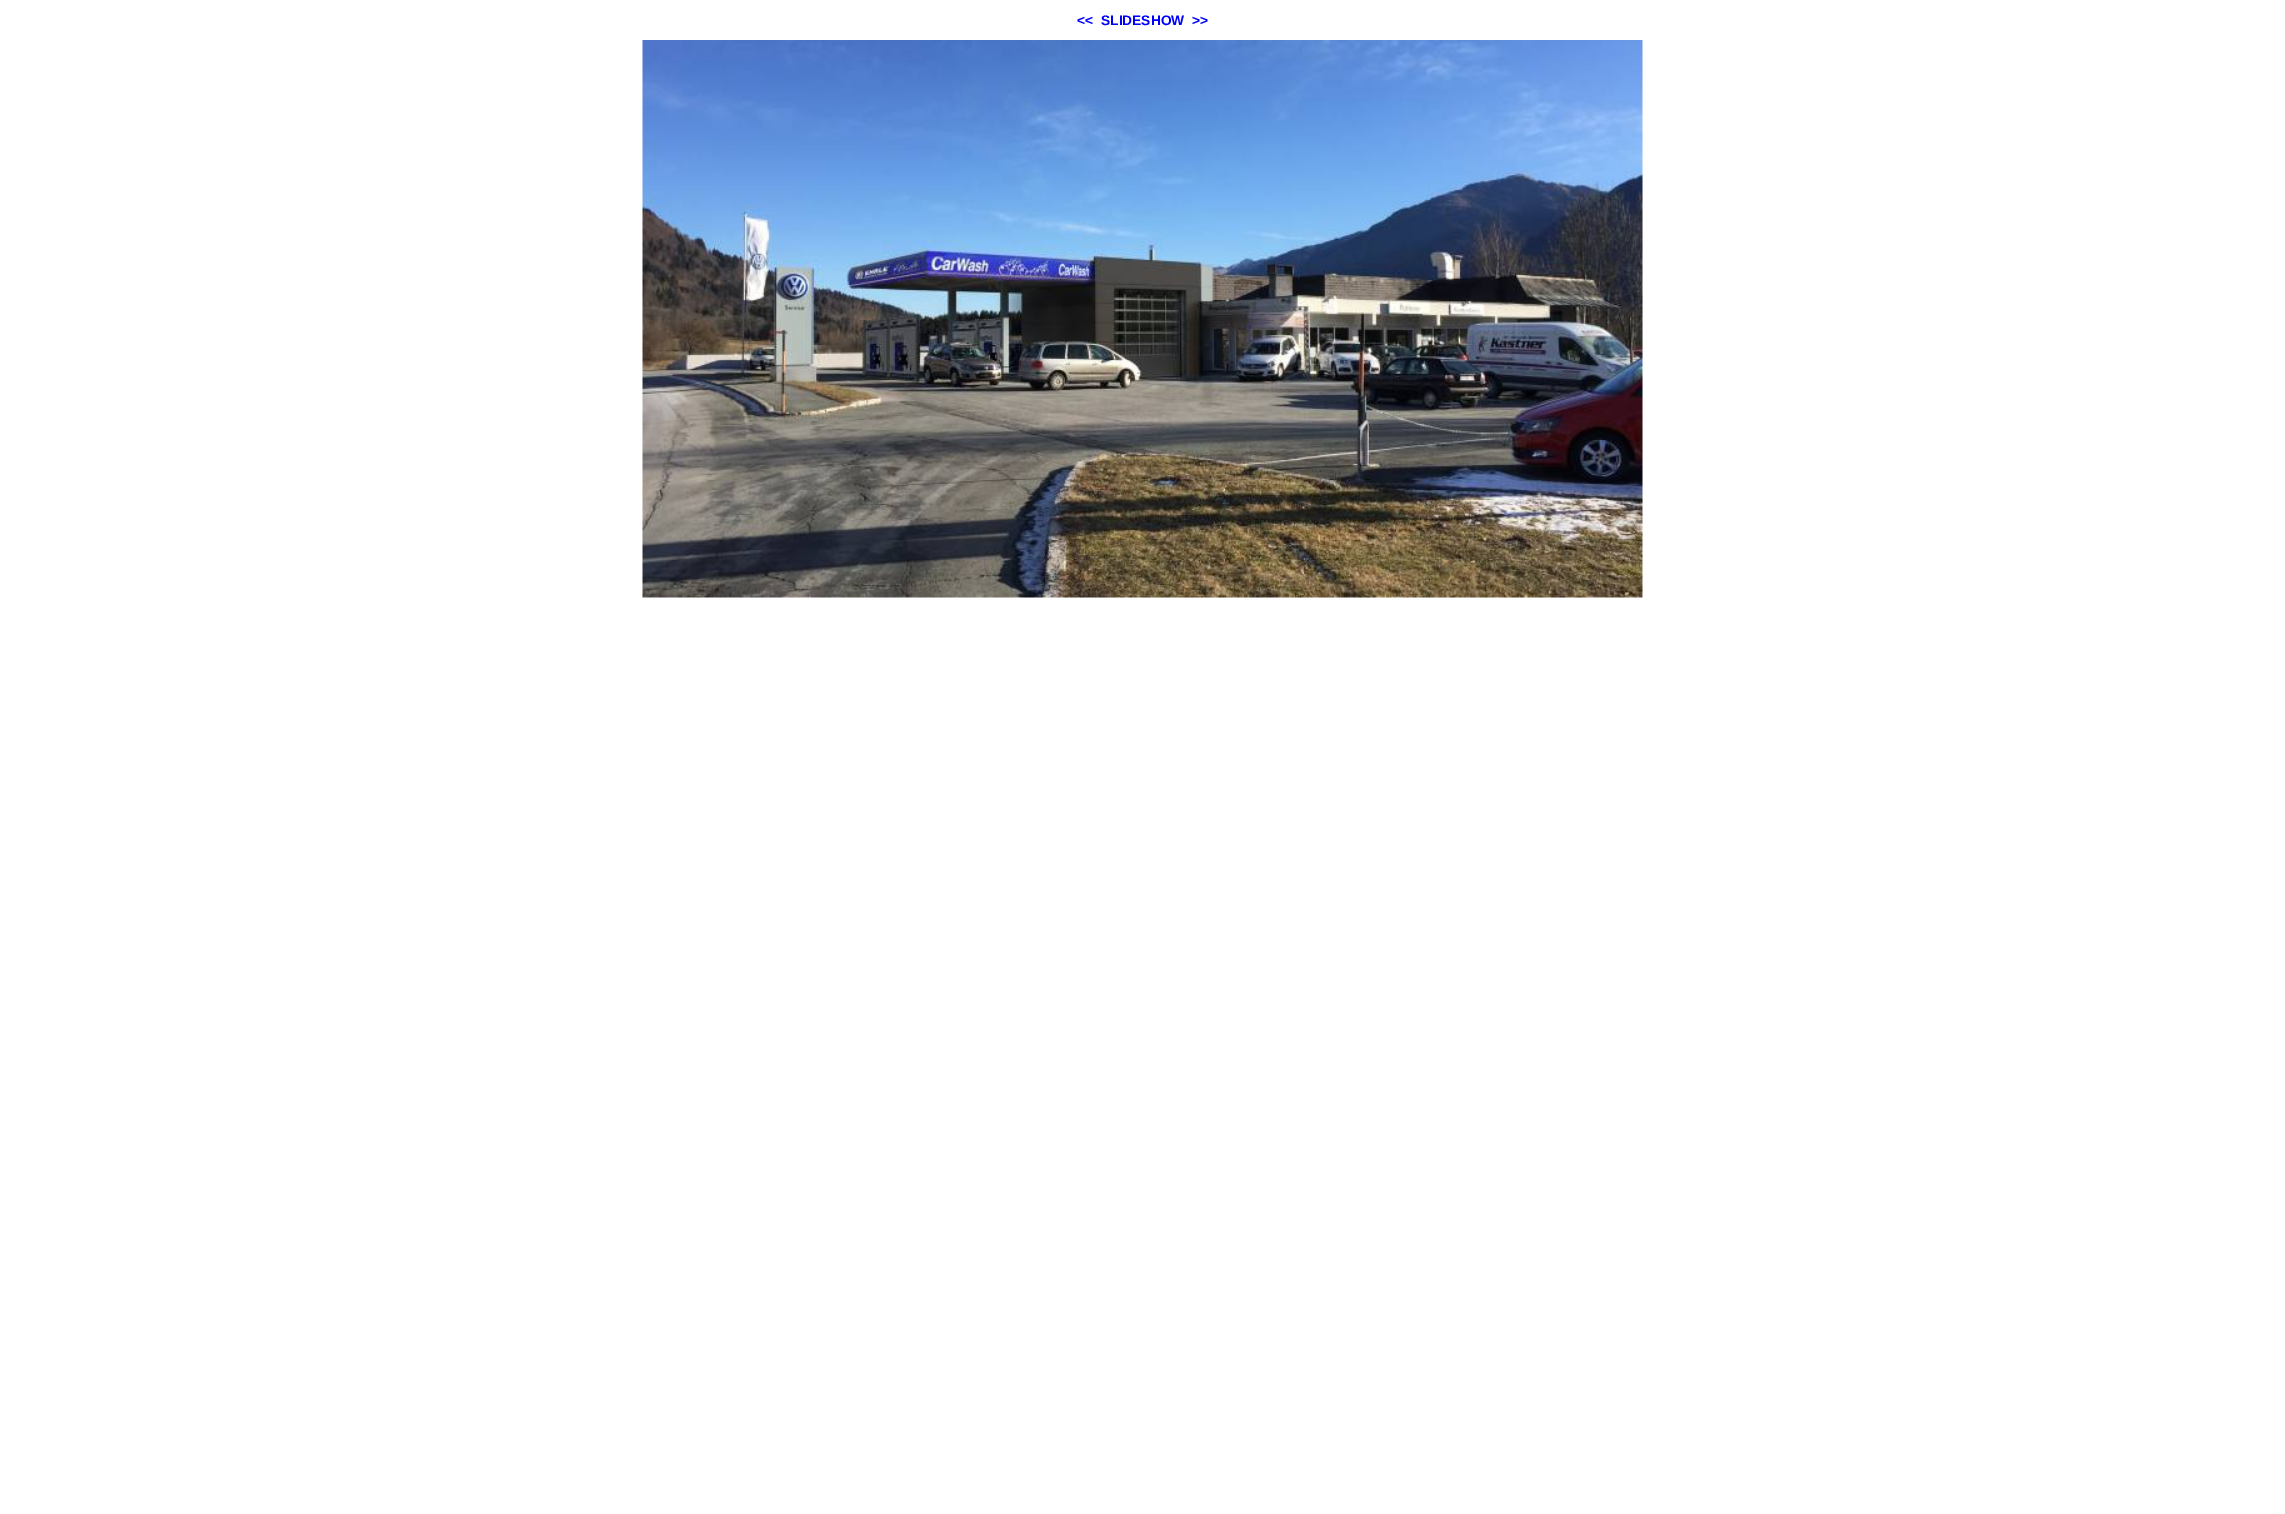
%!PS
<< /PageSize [2285 1514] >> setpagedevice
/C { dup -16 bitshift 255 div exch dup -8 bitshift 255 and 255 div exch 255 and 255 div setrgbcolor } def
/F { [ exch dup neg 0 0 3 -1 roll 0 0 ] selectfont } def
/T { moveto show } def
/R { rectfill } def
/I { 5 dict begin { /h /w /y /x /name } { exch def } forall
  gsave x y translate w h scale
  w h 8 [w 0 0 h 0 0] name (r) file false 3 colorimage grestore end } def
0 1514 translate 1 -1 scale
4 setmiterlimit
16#FFFFFF C
0 0 2285 1514 R
/LiberationSans-Bold 13.75 F
16#0000FF C
(<<) 1077 25 T
(SLIDESHOW) 1101 25 T
(>>) 1192 25 T
(1.rgb) 642 40 1001 558 I
showpage
